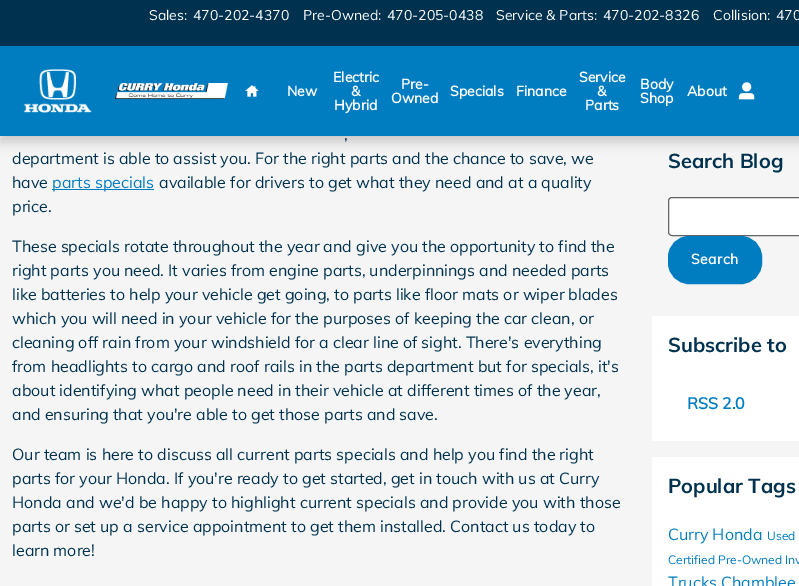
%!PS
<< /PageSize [799 586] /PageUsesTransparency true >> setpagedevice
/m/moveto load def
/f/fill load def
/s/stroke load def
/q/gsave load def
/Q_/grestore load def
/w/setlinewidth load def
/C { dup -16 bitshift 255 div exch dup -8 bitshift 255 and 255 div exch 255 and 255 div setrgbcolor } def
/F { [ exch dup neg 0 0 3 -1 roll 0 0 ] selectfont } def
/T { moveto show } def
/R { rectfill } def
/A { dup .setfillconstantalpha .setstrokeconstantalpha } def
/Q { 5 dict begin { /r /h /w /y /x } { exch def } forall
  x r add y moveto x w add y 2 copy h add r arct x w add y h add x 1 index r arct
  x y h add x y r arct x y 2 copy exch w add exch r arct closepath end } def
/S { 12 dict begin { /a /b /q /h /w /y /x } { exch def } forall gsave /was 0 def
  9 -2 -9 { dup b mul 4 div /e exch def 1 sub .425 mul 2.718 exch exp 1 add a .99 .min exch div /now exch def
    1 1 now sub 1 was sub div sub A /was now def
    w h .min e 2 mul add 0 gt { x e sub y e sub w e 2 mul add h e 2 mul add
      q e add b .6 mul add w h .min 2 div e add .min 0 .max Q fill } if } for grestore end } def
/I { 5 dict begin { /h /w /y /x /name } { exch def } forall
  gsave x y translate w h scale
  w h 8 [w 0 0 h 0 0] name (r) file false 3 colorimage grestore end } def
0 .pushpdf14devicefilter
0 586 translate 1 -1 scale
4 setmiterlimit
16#F5F5F5 C
0 0 799 586 R
16#000000 C
0 6 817 136 0 6 .18 S
16#007CC0 C
0 46 799 90 R
16#00324F C
0 0 799 46 R
/Muli-Regular 14 F
16#FFFFFF C
(Sales:) 149 20 T
(470-202-4370) 193 20 T
(Pre-Owned:) 303 20 T
(470-205-0438) 387 20 T
(Service & Parts:) 496 20 T
(470-202-8326) 603 20 T
(Collision:) 713 20 T
(470) 776 20 T
(1.rgb) 23 69 69 44 I
(2.rgb) 115 83 113 16 I
(3.rgb) 245 85 14 12 I
/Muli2-Bold 14 F
(New) 287 96 T
(Electric) 333 82 T
(&) 351 96 T
(Hybrid) 334 110 T
(Pre-) 401 89 T
(Owned) 391 103 T
(Specials) 450 96 T
(Finance) 516 96 T
(Service) 579 82 T
(&) 597 96 T
(Parts) 585 110 T
(Body) 640 89 T
(Shop) 640 103 T
(About) 687 96 T
(4.rgb) 738 82 17 18 I
/Muli-Regular 16 F
16#00324F C
(,) 344 140 T
(department is able to assist you. For the right parts and the chance to save, we) 12 164 T
(have) 12 188 T
16#007CC0 C
52 189 102 1 R
(parts specials) 52 188 T
16#00324F C
(available for drivers to get what they need and at a quality) 159 188 T
(price.) 12 212 T
(These specials rotate throughout the year and give you the opportunity to find the) 12 252 T
(right parts you need. It varies from engine parts, underpinnings and needed parts) 12 276 T
(like batteries to help your vehicle get going, to parts like floor mats or wiper blades) 12 300 T
(which you will need in your vehicle for the purposes of keeping the car clean, or) 12 324 T
(cleaning off rain from your windshield for a clear line of sight. There's everything) 12 348 T
(from headlights to cargo and roof rails in the parts department but for specials, it's) 12 372 T
(about identifying what people need in their vehicle at different times of the year,) 12 396 T
(and ensuring that you're able to get those parts and save.) 12 420 T
(Our team is here to discuss all current parts specials and help you find the right) 12 460 T
(parts for your Honda. If you're ready to get started, get in touch with us at Curry) 12 484 T
(Honda and we'd be happy to highlight current specials and provide you with those) 12 508 T
(parts or set up a service appointment to get them installed. Contact us today to) 12 532 T
(learn more!) 12 556 T
/Muli-Bold 20 F
(Search Blog) 668 168 T
16#FFFFFF C
668.5 197.5 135 38 3.5 Q q f Q_
16#646464 C
s
16#007CC0 C
669 237 92 46 20 Q q f Q_
2 w
s
/Muli2-Bold 14 F
16#FFFFFF C
691 264 m .5 0 (Search) ashow
652 316 147 125 R
/Muli-Bold 20 F
16#00324F C
(Subscribe to) 668 352 T
/Muli2-Bold 16 F
16#007CC0 C
(RSS 2.0) 687 409 T
16#FFFFFF C
652 457 147 129 R
/Muli-Bold 20 F
16#00324F C
(Popular Tags) 668 493 T
/Muli-Regular 16 F
16#007CC0 C
(Curry Honda) 668 540 T
/Muli-Regular 12 F
(Used) 767 540 T
(Certified Pre-Owned Inv) 668 564 T
/Muli-Regular 16 F
(Trucks Chamblee) 668 588 T
.poppdf14devicefilter showpage
